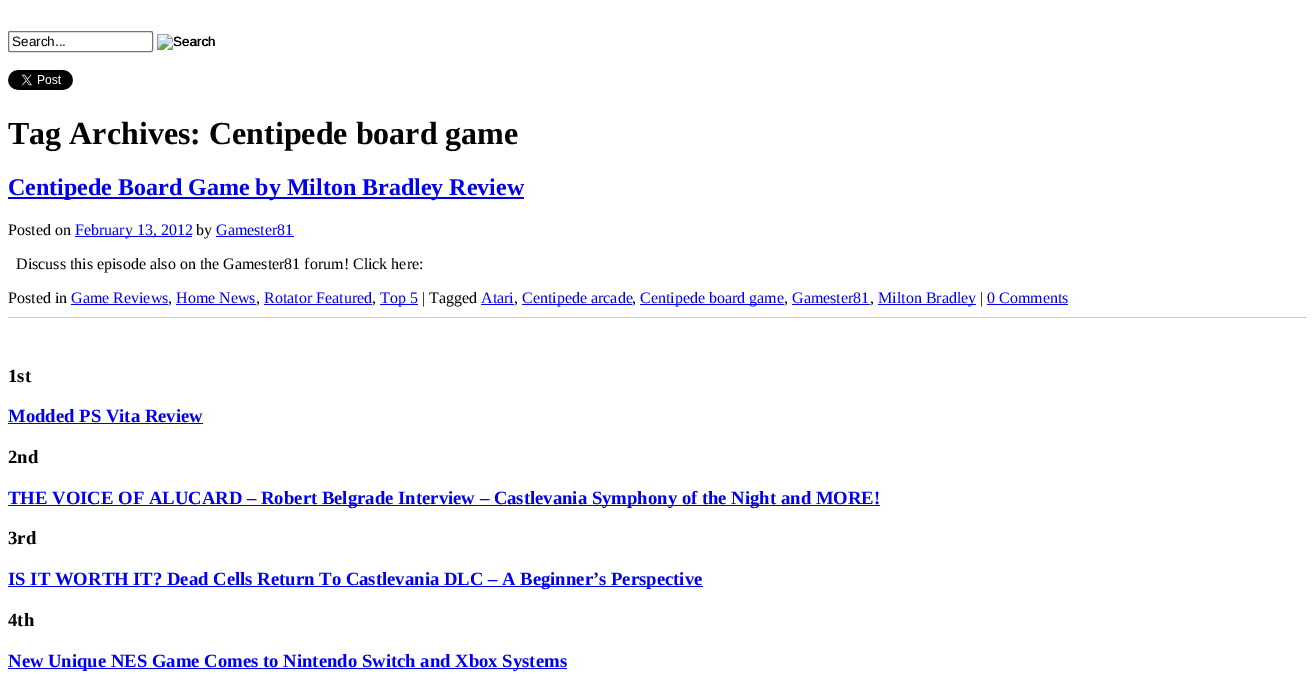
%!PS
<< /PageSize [1315 686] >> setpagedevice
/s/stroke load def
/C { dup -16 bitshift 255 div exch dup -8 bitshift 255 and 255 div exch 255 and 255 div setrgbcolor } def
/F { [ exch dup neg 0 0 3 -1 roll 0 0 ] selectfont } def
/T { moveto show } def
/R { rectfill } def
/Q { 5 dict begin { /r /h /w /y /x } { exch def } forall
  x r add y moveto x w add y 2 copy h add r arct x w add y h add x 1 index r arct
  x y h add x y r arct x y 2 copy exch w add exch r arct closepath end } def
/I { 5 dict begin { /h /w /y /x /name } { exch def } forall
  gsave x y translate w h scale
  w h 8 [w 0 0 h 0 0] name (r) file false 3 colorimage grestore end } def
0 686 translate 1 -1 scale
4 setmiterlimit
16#FFFFFF C
0 0 1315 686 R
16#767676 C
8.5 31.5 144 20 1.5 Q s
/LiberationSans-Regular 13.5 F
16#000000 C
(Search...) 12 46 T
(1.rgb) 157 34 58 16 I
(Search) 173 46 T
(2.rgb) 8 70 65 20 I
/LiberationSerif-Bold 32 F
(Tag Archives: Centipede board game) 8 144 T
16#0000EE C
8 197 516 2 R
/LiberationSerif-Bold 24 F
(Centipede Board Game by Milton Bradley Review) 8 195 T
/LiberationSerif-Regular 16 F
16#000000 C
(Posted on) 8 235 T
16#0000EE C
75 236 117 1 R
(February 13, 2012) 75 235 T
16#000000 C
(by) 196 235 T
16#0000EE C
(Gamester81) 216 235 T
216 236 78 1 R
16#000000 C
(Discuss this episode also on the Gamester81 forum! Click here:) 16 269 T
(Posted in) 8 303 T
16#0000EE C
(Game Reviews) 71 303 T
16#000000 C
(,) 168 303 T
16#0000EE C
71 304 97 1 R
(Home News) 176 303 T
16#000000 C
(,) 256 303 T
16#0000EE C
176 304 80 1 R
(Rotator Featured) 264 303 T
16#000000 C
(,) 372 303 T
16#0000EE C
264 304 108 1 R
380 304 38 1 R
(Top 5) 380 303 T
16#000000 C
(| Tagged) 422 303 T
16#0000EE C
(Atari) 481 303 T
16#000000 C
(,) 514 303 T
16#0000EE C
481 304 33 1 R
522 304 110 1 R
(Centipede arcade) 522 303 T
16#000000 C
(,) 632 303 T
16#0000EE C
640 304 144 1 R
(Centipede board game) 640 303 T
16#000000 C
(,) 784 303 T
16#0000EE C
(Gamester81) 792 303 T
16#000000 C
(,) 870 303 T
16#0000EE C
792 304 78 1 R
878 304 98 1 R
(Milton Bradley) 878 303 T
16#000000 C
(|) 980 303 T
16#0000EE C
(0 Comments) 987 303 T
987 304 81 1 R
16#CDCDCD C
8 317 1299 1 R
/LiberationSerif-Bold 18.7 F
16#000000 C
(1st) 8 382 T
16#0000EE C
(Modded PS Vita Review) 8 422 T
8 423 195 1 R
16#000000 C
(2nd) 8 463 T
16#0000EE C
8 505 872 1 R
(THE VOICE OF ALUCARD – Robert Belgrade Interview – Castlevania Symphony of the Night and MORE!) 8 504 T
16#000000 C
(3rd) 8 544 T
16#0000EE C
8 586 695 1 R
(IS IT WORTH IT? Dead Cells Return To Castlevania DLC – A Beginner’s Perspective) 8 585 T
16#000000 C
(4th) 8 626 T
16#0000EE C
8 668 559 1 R
(New Unique NES Game Comes to Nintendo Switch and Xbox Systems) 8 667 T
showpage
